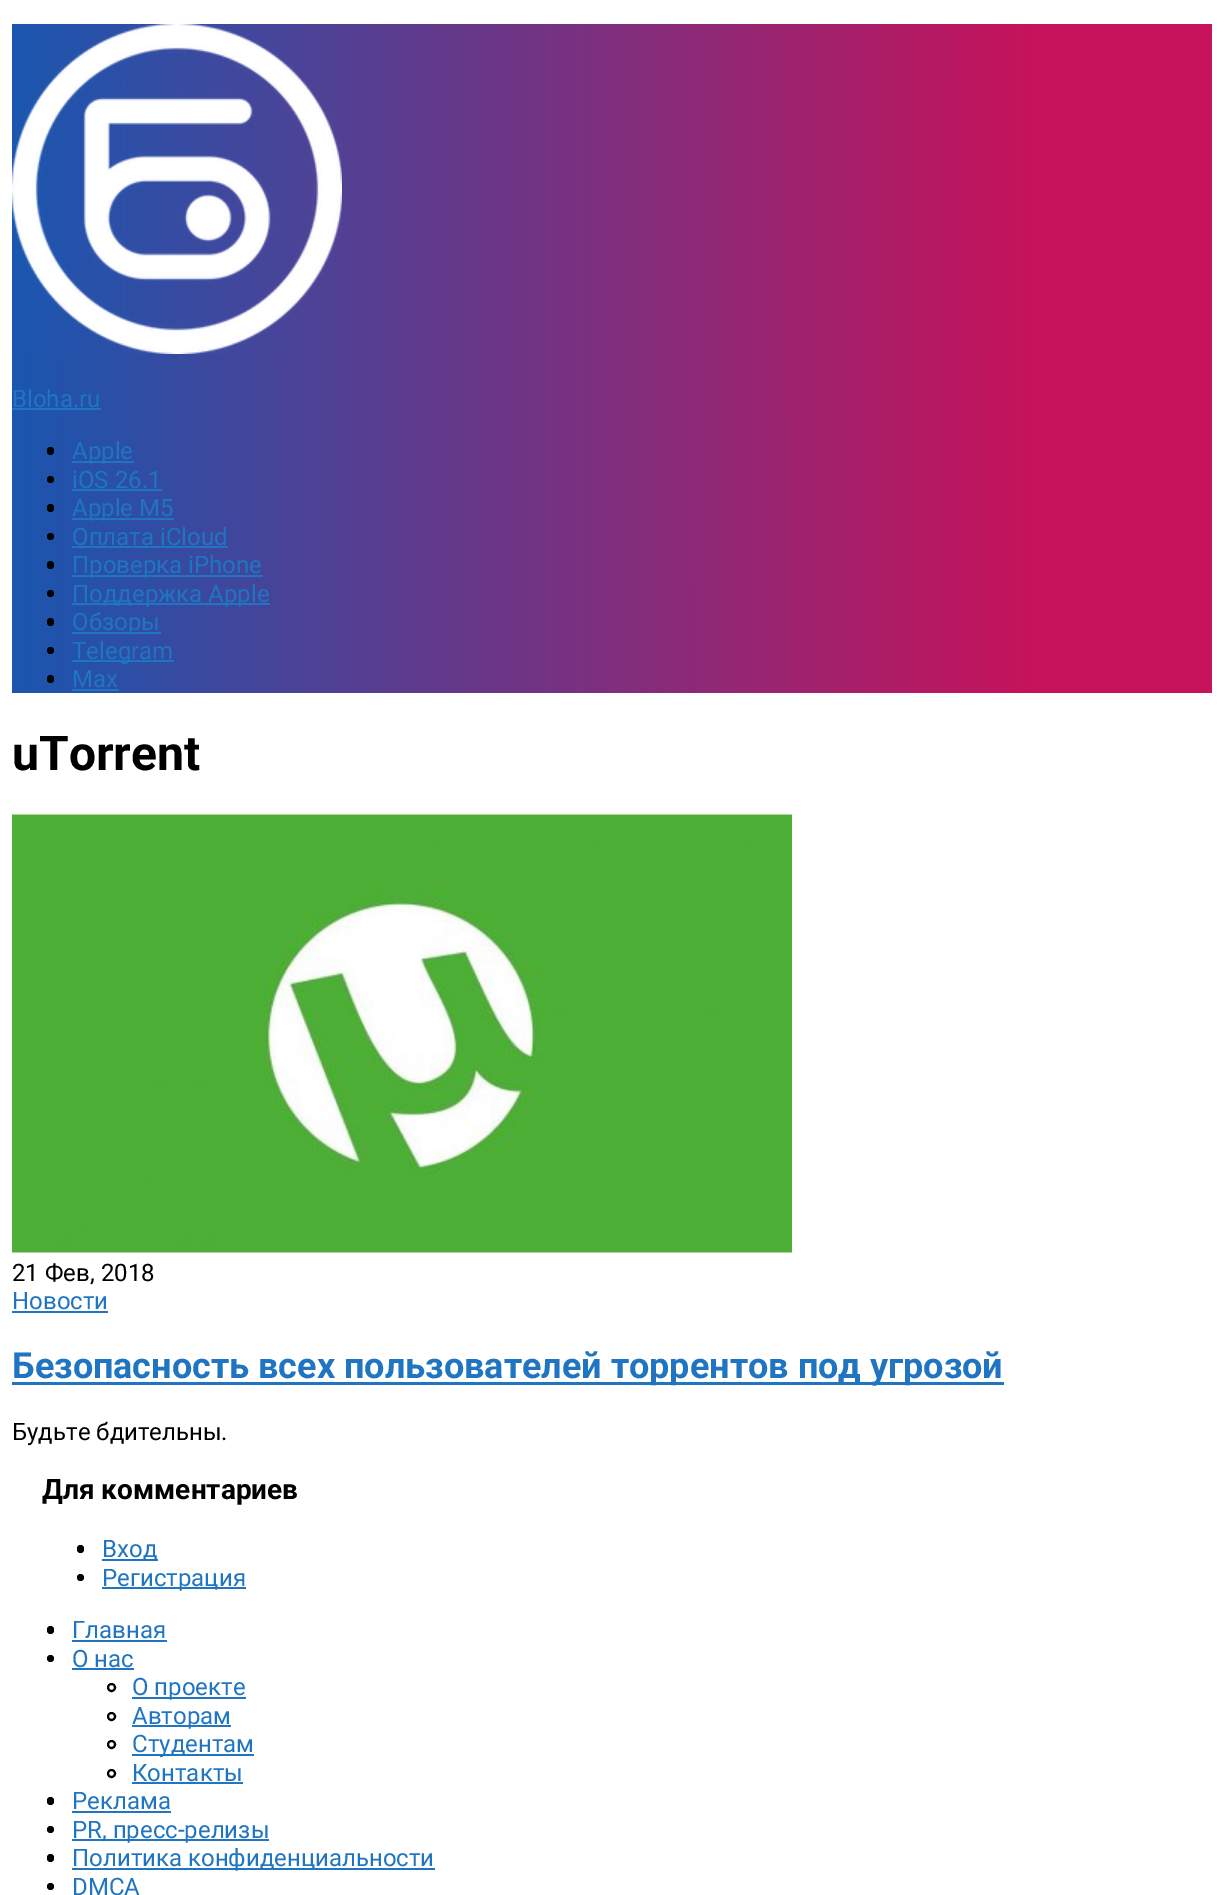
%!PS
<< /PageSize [1224 1895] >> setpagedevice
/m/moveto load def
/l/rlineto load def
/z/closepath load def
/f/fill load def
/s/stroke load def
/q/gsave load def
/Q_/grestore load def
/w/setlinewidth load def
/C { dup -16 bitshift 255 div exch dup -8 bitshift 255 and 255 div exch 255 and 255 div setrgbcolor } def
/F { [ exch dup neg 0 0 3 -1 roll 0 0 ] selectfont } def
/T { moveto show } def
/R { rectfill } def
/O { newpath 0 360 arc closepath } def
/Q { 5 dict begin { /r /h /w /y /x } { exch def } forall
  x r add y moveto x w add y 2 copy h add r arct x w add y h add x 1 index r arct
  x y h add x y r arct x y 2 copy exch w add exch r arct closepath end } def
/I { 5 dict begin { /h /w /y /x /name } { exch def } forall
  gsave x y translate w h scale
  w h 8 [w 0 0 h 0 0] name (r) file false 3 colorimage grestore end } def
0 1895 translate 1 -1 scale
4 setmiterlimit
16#FFFFFF C
0 0 1224 1895 R
q 12 24 m 1200 0 l 0 669 l -1200 0 l z clip newpath
<< /ShadingType 2 /ColorSpace /DeviceRGB /Coords [12 359 1212 358] /Extend [true true] /Function << /FunctionType 3 /Domain [0 1] /Functions [<< /FunctionType 2 /Domain [0 1] /C0 [.102 .337 .686] /C1 [.776 .075 .357] /N 1 >> << /FunctionType 2 /Domain [0 1] /C0 [.776 .075 .357] /C1 [.776 .075 .357] /N 1 >>] /Bounds [.85] /Encode [0 1 0 1] >> >> shfill Q_
(1.rgb) 12 24 330 330 I
/Roboto-Regular 24 F
16#1F75C1 C
(Bloha.ru) 12 407 T
12 408 89 2 R
16#000000 C
47 447 7 8 3.5 Q f
16#1F75C1 C
72 461 62 2 R
(Apple) 72 459 T
16#000000 C
50.5 479.5 3.5 O f
16#1F75C1 C
(iOS 26.1) 72 488 T
72 489 90 2 R
16#000000 C
47 504 7 8 3.5 Q f
16#1F75C1 C
72 518 102 2 R
(Apple M5) 72 516 T
16#000000 C
50.5 536.5 3.5 O f
16#1F75C1 C
(Оплата iCloud) 72 545 T
72 546 156 2 R
16#000000 C
47 561 7 8 3.5 Q f
16#1F75C1 C
72 575 191 2 R
(Проверка iPhone) 72 573 T
16#000000 C
50.5 593.5 3.5 O f
16#1F75C1 C
72 603 198 2 R
(Поддержка Apple) 72 602 T
16#000000 C
47 618 7 8 3.5 Q f
16#1F75C1 C
72 632 89 2 R
(Обзоры) 72 630 T
16#000000 C
50.5 650.5 3.5 O f
16#1F75C1 C
72 660 102 2 R
(Telegram) 72 659 T
16#000000 C
47 675 7 8 3.5 Q f
16#1F75C1 C
(Max) 72 687 T
72 689 47 2 R
/Roboto-Bold 48 F
16#000000 C
(uTorrent) 12 770 T
(2.rgb) 12 814 780 439 I
/Roboto-Regular 24 F
(21 Фев, 2018) 12 1281 T
16#1F75C1 C
(Новости) 12 1309 T
12 1311 96 2 R
12 1382 992 3 R
/Roboto-Bold 36 F
(Безопасность всех пользователей торрентов под угрозой) 12 1378 T
/Roboto-Regular 24 F
16#000000 C
(Будьте бдительны.) 12 1440 T
/Roboto-Bold 28 F
(Для комментариев) 42 1499 T
77 1545 7 8 3.5 Q f
16#1F75C1 C
102 1559 56 2 R
/Roboto-Regular 24 F
(Вход) 102 1557 T
16#000000 C
80.5 1577.5 3.5 O f
16#1F75C1 C
102 1587 144 2 R
(Регистрация) 102 1586 T
16#000000 C
47 1626 7 8 3.5 Q f
16#1F75C1 C
(Главная) 72 1638 T
72 1640 95 2 R
16#000000 C
50.5 1658.5 3.5 O f
16#1F75C1 C
(О нас) 72 1667 T
72 1668 62 2 R
16#000000 C
2 w
111.5 1687.5 3.5 O s
16#1F75C1 C
132 1697 114 2 R
(О проекте) 132 1695 T
16#000000 C
111.5 1716.5 3.5 O s
16#1F75C1 C
132 1725 99 2 R
(Авторам) 132 1724 T
16#000000 C
111.5 1744.5 3.5 O s
16#1F75C1 C
132 1754 122 2 R
(Студентам) 132 1752 T
16#000000 C
111.5 1773.5 3.5 O s
16#1F75C1 C
(Контакты) 132 1781 T
132 1782 111 2 R
16#000000 C
47 1797 7 8 3.5 Q f
16#1F75C1 C
(Реклама) 72 1809 T
72 1811 99 2 R
16#000000 C
50.5 1829.5 3.5 O f
16#1F75C1 C
72 1839 197 2 R
(PR, пресс-релизы) 72 1838 T
16#000000 C
47 1854 7 8 3.5 Q f
16#1F75C1 C
72 1868 363 2 R
(Политика конфиденциальности) 72 1866 T
16#000000 C
50.5 1886.5 3.5 O f
16#1F75C1 C
(DMCA) 72 1895 T
showpage
